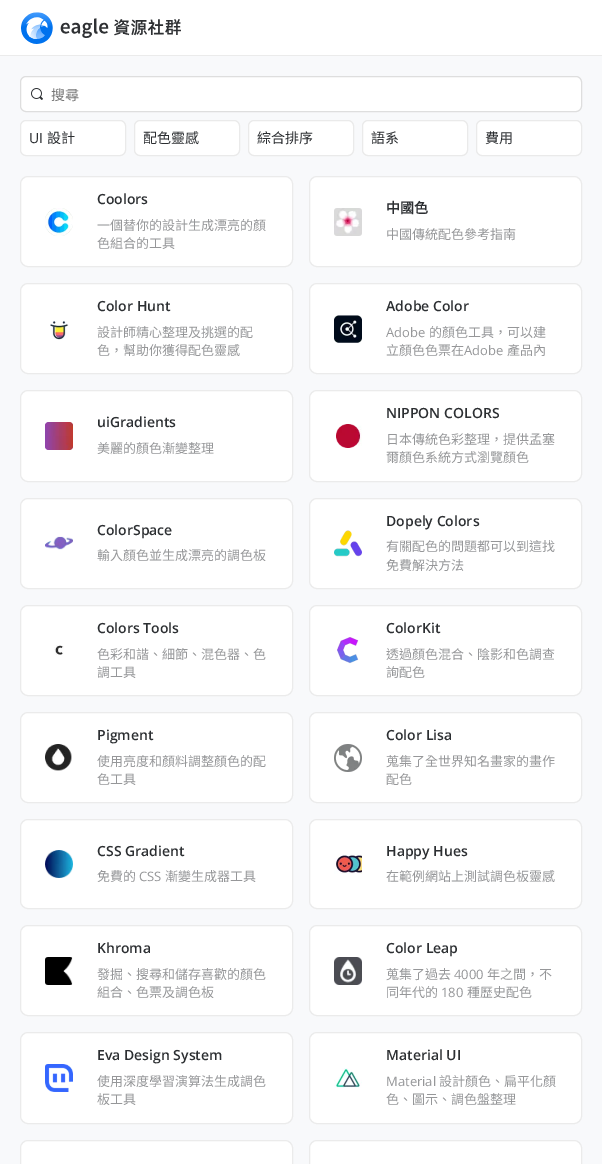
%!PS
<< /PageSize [602 1164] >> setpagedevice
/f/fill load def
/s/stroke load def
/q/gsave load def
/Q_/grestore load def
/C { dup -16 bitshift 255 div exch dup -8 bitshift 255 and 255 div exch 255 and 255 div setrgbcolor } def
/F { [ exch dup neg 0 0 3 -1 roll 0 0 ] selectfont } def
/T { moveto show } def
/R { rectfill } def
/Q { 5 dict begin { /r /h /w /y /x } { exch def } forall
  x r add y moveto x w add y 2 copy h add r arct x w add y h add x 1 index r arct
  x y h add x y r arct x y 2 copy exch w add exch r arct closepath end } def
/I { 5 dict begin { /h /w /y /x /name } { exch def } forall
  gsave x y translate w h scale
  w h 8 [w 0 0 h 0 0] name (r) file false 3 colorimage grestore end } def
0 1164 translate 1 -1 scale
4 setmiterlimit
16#F8F9FB C
0 0 602 1164 R
16#FFFFFF C
0 0 602 55 R
16#EBEBEB C
0 55 602 1 R
(1.rgb) 21 12 160 32 I
16#FFFFFF C
20 76 562 36 6 Q f
(2.rgb) 31 88 12 12 I
16#DEDEDE C
20.5 76.5 561 35 5.5 Q s
/NotoSansCJKTC-Regular 14 F
16#757575 C
(搜尋) 51 100 T
16#FFFFFF C
20.5 120.5 105 35 5.5 Q q f Q_
16#EAEAEA C
s
/OpenSans-Regular 14 F
16#2C2F32 C
(UI) 29 143 T
/NotoSansCJKTC-Regular 14 F
(設計) 47 143 T
16#FFFFFF C
134.5 120.5 105 35 5.5 Q q f Q_
16#EAEAEA C
s
16#2C2F32 C
(配色靈感) 143 143 T
16#FFFFFF C
248.5 120.5 105 35 5.5 Q q f Q_
16#EAEAEA C
s
16#2C2F32 C
(綜合排序) 257 143 T
16#FFFFFF C
362.5 120.5 105 35 5.5 Q q f Q_
16#EAEAEA C
s
16#2C2F32 C
(語系) 371 143 T
16#FFFFFF C
476.5 120.5 105 35 5.5 Q q f Q_
16#EAEAEA C
s
16#2C2F32 C
(費用) 485 143 T
16#FFFFFF C
20.5 176.5 272 90 7.5 Q q f Q_
16#EBEBEB C
s
(3.rgb) 45 208 28 28 I
/OpenSans-SemiBold 14 F
16#2C2F32 C
(Coolors) 97 204 T
/NotoSansCJKTC-Regular 13 F
16#969799 C
(一個替你的設計生成漂亮的顏) 97 230 T
(色組合的工具) 97 248 T
16#FFFFFF C
309.5 176.5 272 90 7.5 Q q f Q_
16#EBEBEB C
s
(4.rgb) 334 208 28 28 I
/NotoSansCJKTC-Bold 14 F
16#2C2F32 C
(中國色) 386 213 T
/NotoSansCJKTC-Regular 13 F
16#969799 C
(中國傳統配色參考指南) 386 239 T
16#FFFFFF C
20.5 283.5 272 90 7.5 Q q f Q_
16#EBEBEB C
s
(5.rgb) 50 320 19 20 I
/OpenSans-SemiBold 14 F
16#2C2F32 C
(Color Hunt) 97 311 T
/NotoSansCJKTC-Regular 13 F
16#969799 C
(設計師精心整理及挑選的配) 97 337 T
(色，幫助你獲得配色靈感) 97 355 T
16#FFFFFF C
309.5 283.5 272 90 7.5 Q q f Q_
16#EBEBEB C
s
(6.rgb) 334 315 28 28 I
/OpenSans-SemiBold 14 F
16#2C2F32 C
(Adobe Color) 386 311 T
/OpenSans-Regular 13 F
16#969799 C
(Adobe) 386 337 T
/NotoSansCJKTC-Regular 13 F
(的顏色工具，可以建) 429 337 T
(立顏色色票在) 386 355 T
/OpenSans-Regular 13 F
(Adobe) 464 355 T
/NotoSansCJKTC-Regular 13 F
(產品內) 507 355 T
16#FFFFFF C
20.5 390.5 272 91 7.5 Q q f Q_
16#EBEBEB C
s
(7.rgb) 45 422 28 28 I
/OpenSans-SemiBold 14 F
16#2C2F32 C
(uiGradients) 97 427 T
/NotoSansCJKTC-Regular 13 F
16#969799 C
(美麗的顏色漸變整理) 97 453 T
16#FFFFFF C
309.5 390.5 272 91 7.5 Q q f Q_
16#EBEBEB C
s
(8.rgb) 336 424 26 24 I
/OpenSans-SemiBold 14 F
16#2C2F32 C
(NIPPON COLORS) 386 418 T
/NotoSansCJKTC-Regular 13 F
16#969799 C
(日本傳統色彩整理，提供孟塞) 386 444 T
(爾顏色系統方式瀏覽顏色) 386 462 T
16#FFFFFF C
20.5 498.5 272 90 7.5 Q q f Q_
16#EBEBEB C
s
(9.rgb) 45 536 28 14 I
/OpenSans-SemiBold 14 F
16#2C2F32 C
(ColorSpace) 97 535 T
/NotoSansCJKTC-Regular 13 F
16#969799 C
(輸入顏色並生成漂亮的調色板) 97 560 T
16#FFFFFF C
309.5 498.5 272 90 7.5 Q q f Q_
16#EBEBEB C
s
(10.rgb) 334 530 28 27 I
/OpenSans-SemiBold 14 F
16#2C2F32 C
(Dopely Colors) 386 526 T
/NotoSansCJKTC-Regular 13 F
16#969799 C
(有關配色的問題都可以到這找) 386 551 T
(免費解決方法) 386 570 T
16#FFFFFF C
20.5 605.5 272 90 7.5 Q q f Q_
16#EBEBEB C
s
(11.rgb) 54 645 10 10 I
/OpenSans-SemiBold 14 F
16#2C2F32 C
(Colors Tools) 97 633 T
/NotoSansCJKTC-Regular 13 F
16#969799 C
(色彩和諧、細節、混色器、色) 97 659 T
(調工具) 97 677 T
16#FFFFFF C
309.5 605.5 272 90 7.5 Q q f Q_
16#EBEBEB C
s
(12.rgb) 337 637 22 27 I
/OpenSans-SemiBold 14 F
16#2C2F32 C
(ColorKit) 386 633 T
/NotoSansCJKTC-Regular 13 F
16#969799 C
(透過顏色混合、陰影和色調查) 386 659 T
(詢配色) 386 677 T
16#FFFFFF C
20.5 712.5 272 90 7.5 Q q f Q_
16#EBEBEB C
s
(13.rgb) 45 744 27 27 I
/OpenSans-SemiBold 14 F
16#2C2F32 C
(Pigment) 97 740 T
/NotoSansCJKTC-Regular 13 F
16#969799 C
(使用亮度和顏料調整顏色的配) 97 766 T
(色工具) 97 784 T
16#FFFFFF C
309.5 712.5 272 90 7.5 Q q f Q_
16#EBEBEB C
s
(14.rgb) 334 744 28 28 I
/OpenSans-SemiBold 14 F
16#2C2F32 C
(Color Lisa) 386 740 T
/NotoSansCJKTC-Regular 13 F
16#969799 C
(蒐集了全世界知名畫家的畫作) 386 766 T
(配色) 386 784 T
16#FFFFFF C
20.5 819.5 272 89 7.5 Q q f Q_
16#EBEBEB C
s
(15.rgb) 45 850 28 28 I
/OpenSans-SemiBold 14 F
16#2C2F32 C
(CSS Gradient) 97 856 T
/NotoSansCJKTC-Regular 13 F
16#969799 C
(免費的) 97 881 T
/OpenSans-Regular 13 F
(CSS) 139 881 T
/NotoSansCJKTC-Regular 13 F
(漸變生成器工具) 165 881 T
16#FFFFFF C
309.5 819.5 272 89 7.5 Q q f Q_
16#EBEBEB C
s
(16.rgb) 334 854 28 20 I
/OpenSans-SemiBold 14 F
16#2C2F32 C
(Happy Hues) 386 856 T
/NotoSansCJKTC-Regular 13 F
16#969799 C
(在範例網站上測試調色板靈感) 386 881 T
16#FFFFFF C
20.5 925.5 272 90 7.5 Q q f Q_
16#EBEBEB C
s
(17.rgb) 45 957 28 28 I
/OpenSans-SemiBold 14 F
16#2C2F32 C
(Khroma) 97 953 T
/NotoSansCJKTC-Regular 13 F
16#969799 C
(發掘、搜尋和儲存喜歡的顏色) 97 979 T
(組合、色票及調色板) 97 997 T
16#FFFFFF C
309.5 925.5 272 90 7.5 Q q f Q_
16#EBEBEB C
s
(18.rgb) 334 957 28 28 I
/OpenSans-SemiBold 14 F
16#2C2F32 C
(Color Leap) 386 953 T
/NotoSansCJKTC-Regular 13 F
16#969799 C
(蒐集了過去) 386 979 T
/OpenSans-Regular 13 F
(4000) 454 979 T
/NotoSansCJKTC-Regular 13 F
(年之間，不) 487 979 T
(同年代的) 386 997 T
/OpenSans-Regular 13 F
(180) 441 997 T
/NotoSansCJKTC-Regular 13 F
(種歷史配色) 467 997 T
16#FFFFFF C
20.5 1032.5 272 91 7.5 Q q f Q_
16#EBEBEB C
s
(19.rgb) 45 1064 28 28 I
/OpenSans-SemiBold 14 F
16#2C2F32 C
(Eva Design System) 97 1060 T
/NotoSansCJKTC-Regular 13 F
16#969799 C
(使用深度學習演算法生成調色) 97 1086 T
(板工具) 97 1104 T
16#FFFFFF C
309.5 1032.5 272 91 7.5 Q q f Q_
16#EBEBEB C
s
(20.rgb) 334 1068 28 20 I
/OpenSans-SemiBold 14 F
16#2C2F32 C
(Material UI) 386 1060 T
/OpenSans-Regular 13 F
16#969799 C
(Material) 386 1086 T
/NotoSansCJKTC-Regular 13 F
(設計顏色、扁平化顏) 439 1086 T
(色、圖示、調色盤整理) 386 1104 T
16#FFFFFF C
20.5 1140.5 272 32 7.5 Q q f Q_
16#EBEBEB C
s
16#FFFFFF C
309.5 1140.5 272 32 7.5 Q q f Q_
16#EBEBEB C
s
showpage
